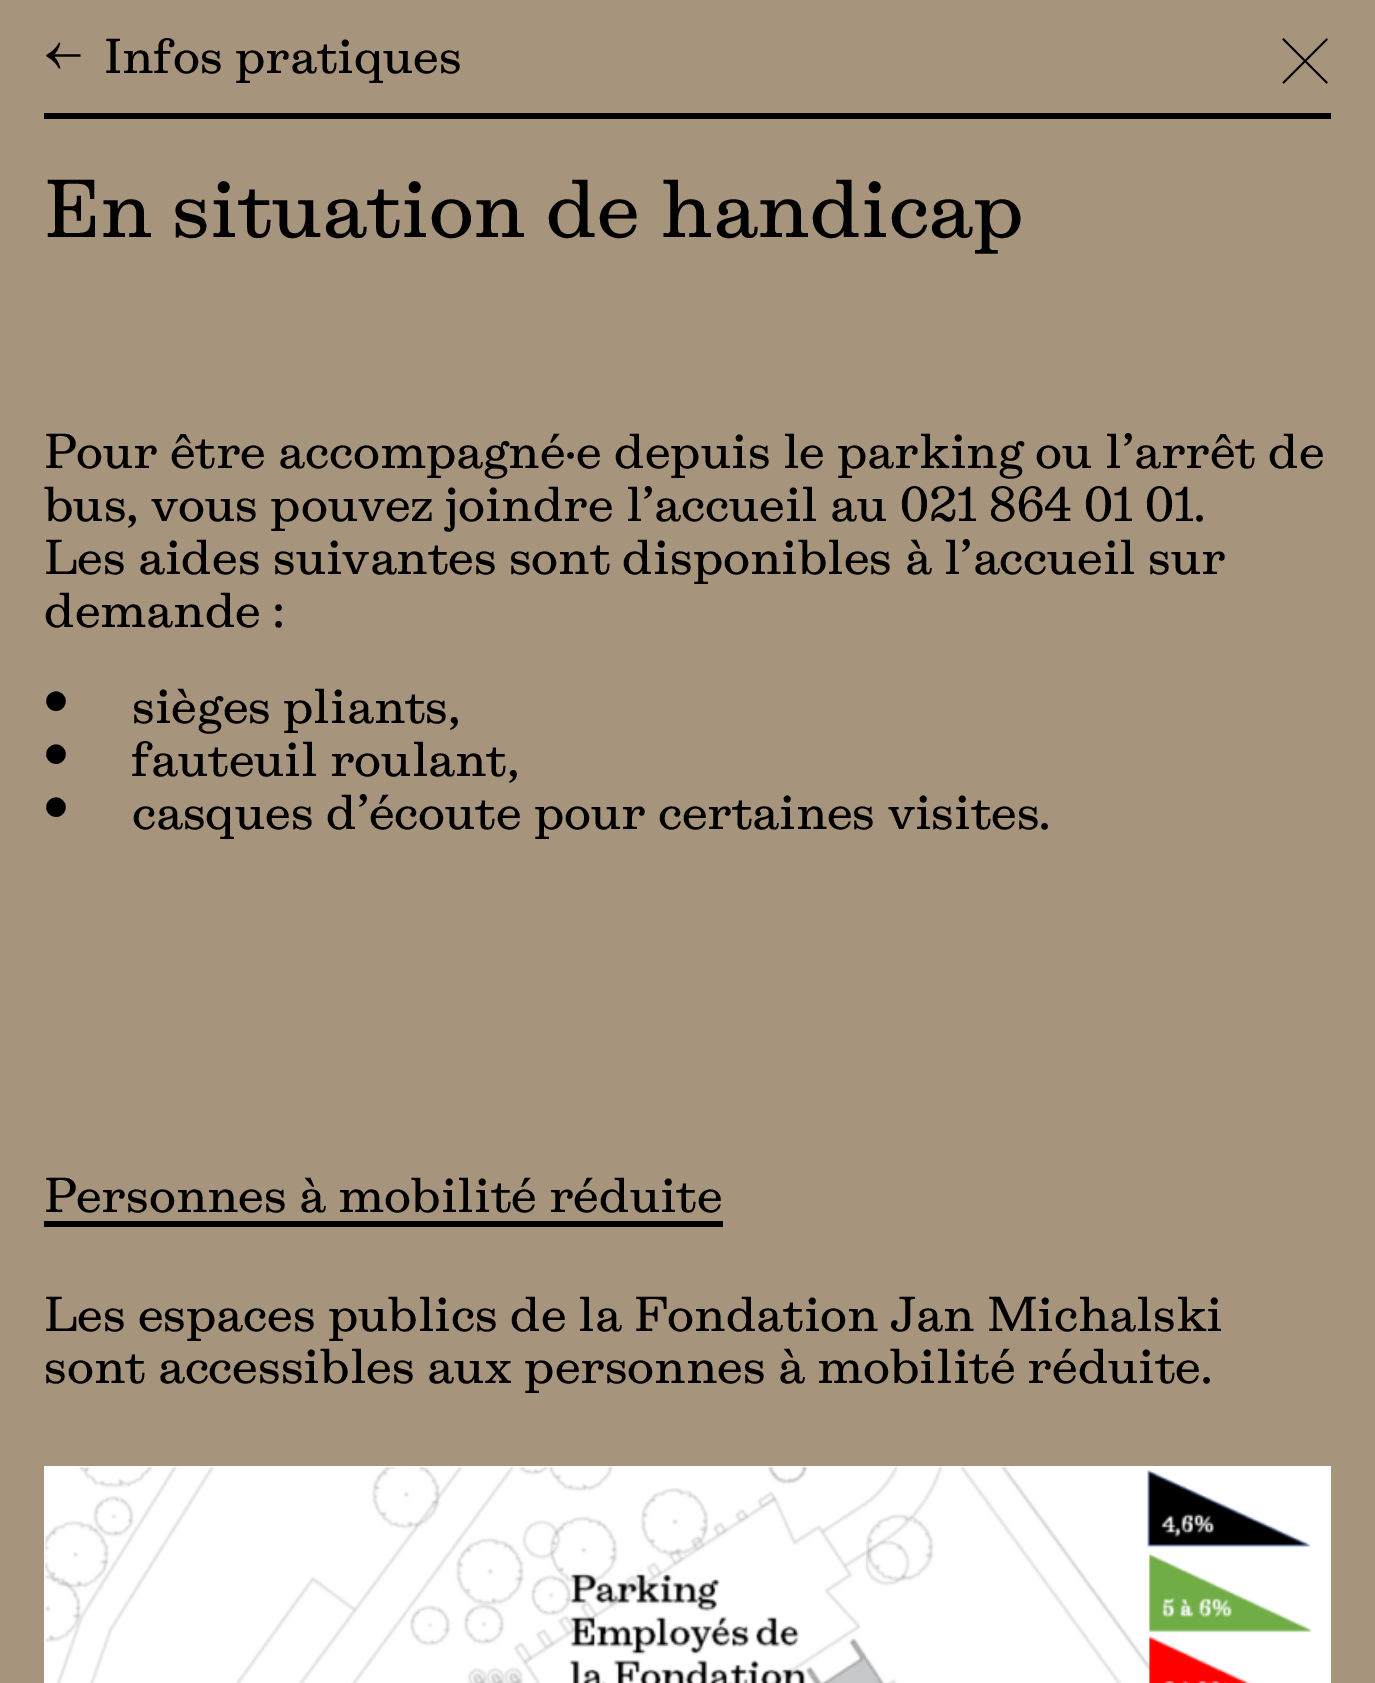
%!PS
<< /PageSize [1375 1683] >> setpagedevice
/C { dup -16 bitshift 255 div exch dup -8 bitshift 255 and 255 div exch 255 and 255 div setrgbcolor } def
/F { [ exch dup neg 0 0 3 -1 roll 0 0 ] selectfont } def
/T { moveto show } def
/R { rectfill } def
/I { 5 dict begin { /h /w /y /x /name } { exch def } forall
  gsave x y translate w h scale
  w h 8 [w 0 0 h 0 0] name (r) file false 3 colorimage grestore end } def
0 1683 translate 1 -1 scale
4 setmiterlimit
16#A6947D C
0 0 1375 1683 R
16#000000 C
44 113 1287 6 R
/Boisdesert-Regular 44 F
(←) 44 73 T
(Infos pratiques) 104 73 T
(╳) 1280 73 T
/Boisdesert-Regular 73.3 F
(En situation de handicap) 44 237 T
/Boisdesert-Regular 44 F
(Pour être accompagné·e depuis le parking ou l’arrêt de) 44 468 T
(bus, vous pouvez joindre l’accueil au 021 864 01 01.) 44 521 T
(Les aides suivantes sont disponibles à l’accueil sur) 44 574 T
(demande :) 44 627 T
(•) 44 712 T
(sièges pliants,) 132 723 T
(•) 44 765 T
(fauteuil roulant,) 132 776 T
(•) 44 818 T
(casques d’écoute pour certaines visites.) 132 829 T
(Personnes à mobilité réduite) 44 1212 T
44 1221 679 6 R
(Les espaces publics de la Fondation Jan Michalski) 44 1331 T
(sont accessibles aux personnes à mobilité réduite.) 44 1383 T
(1.rgb) 44 1466 1287 217 I
showpage
